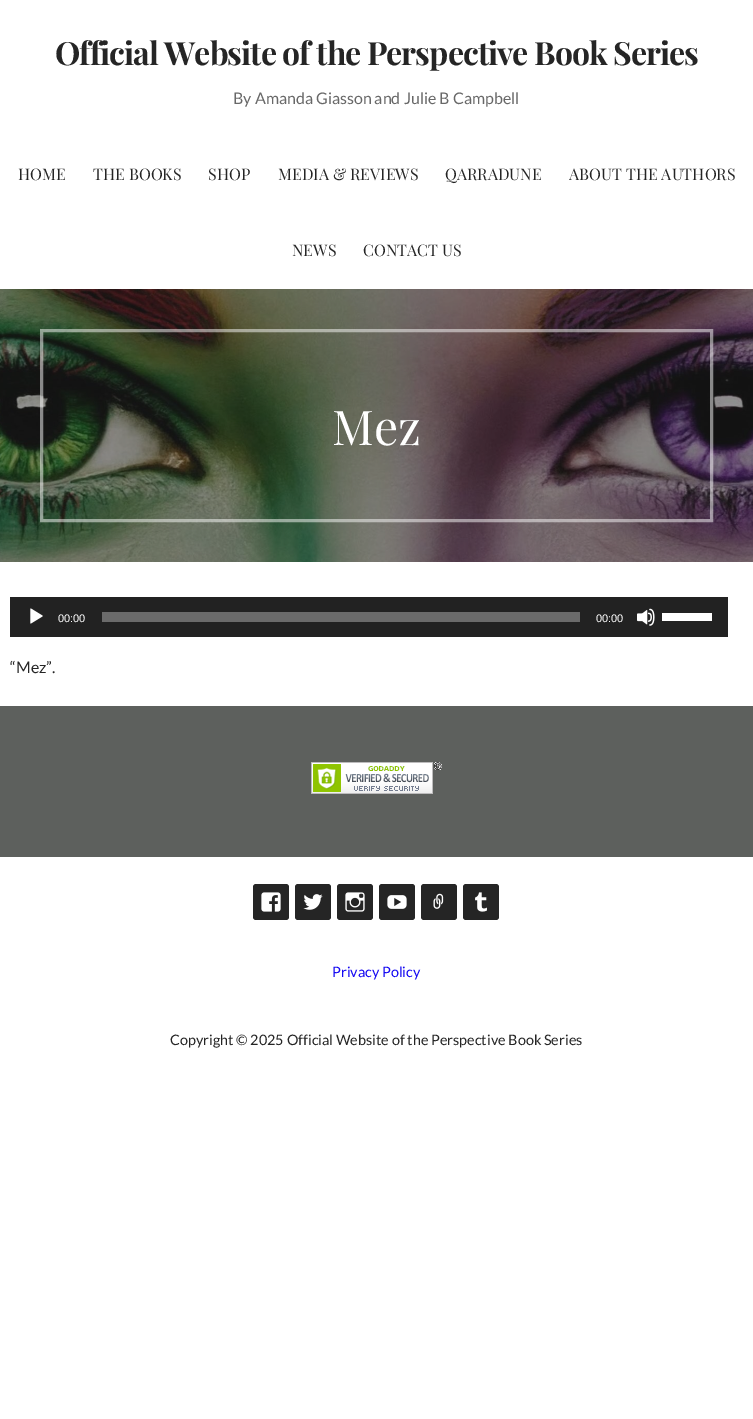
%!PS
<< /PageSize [753 1419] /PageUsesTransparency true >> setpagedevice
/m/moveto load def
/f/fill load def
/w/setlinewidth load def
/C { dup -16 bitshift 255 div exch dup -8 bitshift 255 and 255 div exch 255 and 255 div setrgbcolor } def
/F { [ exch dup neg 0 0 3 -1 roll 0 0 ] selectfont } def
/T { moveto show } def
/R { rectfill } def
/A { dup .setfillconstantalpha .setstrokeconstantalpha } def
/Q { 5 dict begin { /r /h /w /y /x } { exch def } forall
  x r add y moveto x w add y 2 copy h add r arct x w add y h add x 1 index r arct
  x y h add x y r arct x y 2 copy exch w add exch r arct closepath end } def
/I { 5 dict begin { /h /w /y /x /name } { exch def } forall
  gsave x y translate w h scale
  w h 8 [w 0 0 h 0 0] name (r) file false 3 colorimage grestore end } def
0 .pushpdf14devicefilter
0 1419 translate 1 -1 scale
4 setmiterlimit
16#FFFFFF C
0 0 753 1419 R
/PlayfairDisplay-Bold 32 F
16#252525 C
55 65 m -.95 0 (Official Website of the Perspective Book Series) ashow
/Lato-Regular 16 F
16#686868 C
(By Amanda Giasson and Julie B Campbell) 233 104 T
/PlayfairDisplay-Regular 16 F
16#252525 C
(HOME) 18 180 T
(THE BOOKS) 93 180 T
(SHOP) 208 180 T
(MEDIA & REVIEWS) 278 180 T
(QARRADUNE) 445 180 T
(ABOUT THE AUTHORS) 569 180 T
(NEWS) 292 256 T
(CONTACT US) 363 256 T
(1.rgb) 0 289 753 273 I
0.5 A
16#FFFFFF C
3 w
41.5 330.5 670 190 rectstroke
/PlayfairDisplay-Regular 48 F
1 A
(Mez) 332 445 T
16#222222 C
10 597 718 40 R
(2.rgb) 30 608 13 16 I
/LiberationSans-Regular 11 F
16#FFFFFF C
(00:00) 58 622 T
16#6B6B6B C
102 612 478 10 R
16#FFFFFF C
(00:00) 596 622 T
(3.rgb) 637 608 18 18 I
662 613 50 8 R
/Lato-Regular 16 F
16#252525 C
(“Mez”.) 10 673 T
16#5D605D C
0 706 753 151 R
(4.rgb) 311 762 131 32 I
16#252525 C
253 884 36 36 3 Q f
(5.rgb) 261 892 20 20 I
295 884 36 36 3 Q f
(6.rgb) 303 894 20 16 I
337 884 36 36 3 Q f
(7.rgb) 345 892 20 20 I
379 884 36 36 3 Q f
(8.rgb) 387 895 20 14 I
421 884 36 36 3 Q f
(9.rgb) 433 893 11 16 I
463 884 36 36 3 Q f
(10.rgb) 475 892 12 20 I
/Lato-Regular 14.4 F
16#1509F2 C
(Privacy Policy) 332 977 T
16#252525 C
(Copyright © 2025 Official Website of the Perspective Book Series) 170 1045 T
.poppdf14devicefilter showpage
